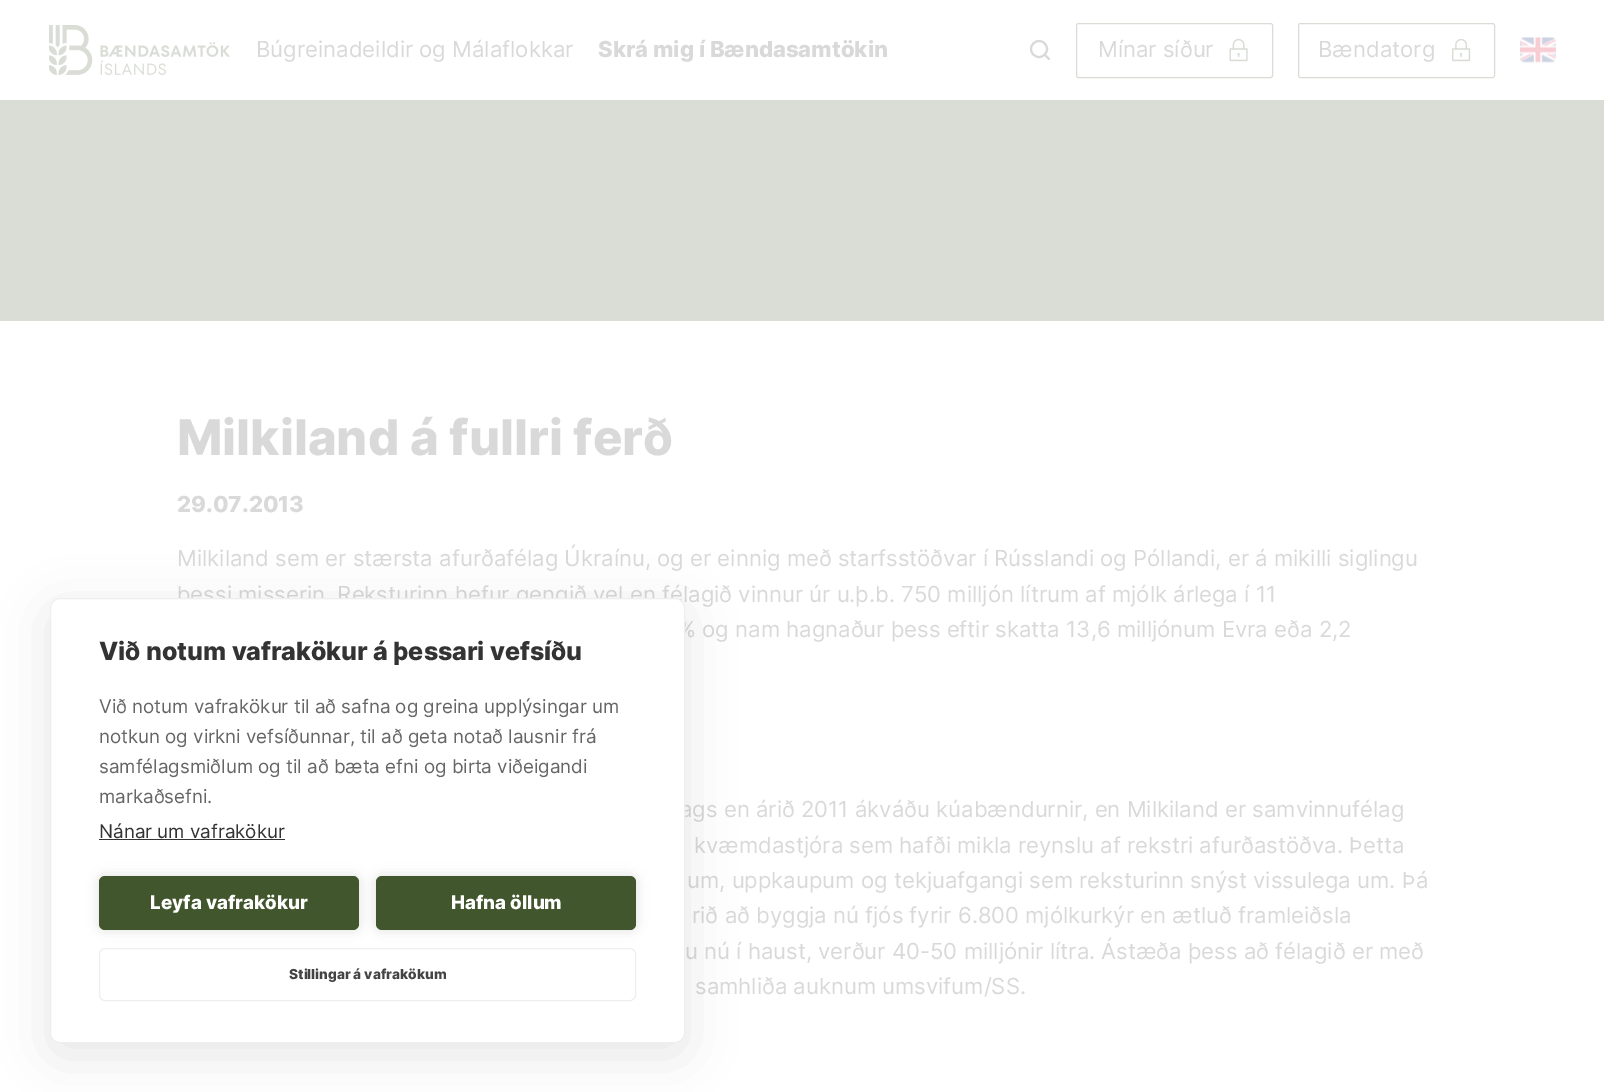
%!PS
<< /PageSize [1604 1092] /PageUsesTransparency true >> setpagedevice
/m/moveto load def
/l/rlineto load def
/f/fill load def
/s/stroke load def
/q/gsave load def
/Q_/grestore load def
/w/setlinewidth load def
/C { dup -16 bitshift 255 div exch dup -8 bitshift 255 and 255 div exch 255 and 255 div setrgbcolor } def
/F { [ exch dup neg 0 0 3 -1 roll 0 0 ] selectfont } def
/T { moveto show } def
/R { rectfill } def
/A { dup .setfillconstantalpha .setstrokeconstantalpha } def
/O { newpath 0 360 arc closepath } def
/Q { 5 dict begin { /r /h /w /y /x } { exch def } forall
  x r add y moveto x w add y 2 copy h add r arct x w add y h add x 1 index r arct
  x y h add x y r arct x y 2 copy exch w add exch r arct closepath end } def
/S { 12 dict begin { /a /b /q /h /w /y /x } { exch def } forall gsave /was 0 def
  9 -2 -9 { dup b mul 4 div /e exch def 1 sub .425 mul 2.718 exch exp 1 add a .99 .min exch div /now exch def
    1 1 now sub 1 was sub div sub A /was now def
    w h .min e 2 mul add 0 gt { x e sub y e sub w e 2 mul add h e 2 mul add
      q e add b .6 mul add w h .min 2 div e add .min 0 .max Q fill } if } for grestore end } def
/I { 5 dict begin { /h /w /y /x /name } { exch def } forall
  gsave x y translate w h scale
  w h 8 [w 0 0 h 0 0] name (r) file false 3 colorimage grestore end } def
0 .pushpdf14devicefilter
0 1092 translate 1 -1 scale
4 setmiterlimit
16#FFFFFF C
0 0 1604 1092 R
(1.rgb) 49 25 181 50 I
/Inter-Regular 22.15 F
16#D9D9D9 C
(Búgreinadeildir og Málaflokkar) 256 57 T
/Inter-ExtraBold 22.15 F
(Skrá mig í Bændasamtökin) 598 57 T
2 w
1039 49 8 O s
1 setlinecap
1 setlinejoin
1049 59 m -4.5 -4.5 l s
16#D9DDD5 C
1 w
0 setlinecap
0 setlinejoin
1076.5 23.5 196 54 2 Q s
/Inter-Regular 22.15 F
16#D9D9D9 C
(Mínar síður) 1098 57 T
(2.rgb) 1229 38 19 24 I
16#D9DDD5 C
1298.5 23.5 196 54 2 Q s
16#D9D9D9 C
(Bændatorg) 1318 57 T
(3.rgb) 1452 38 19 24 I
(4.rgb) 1520 37 36 26 I
16#D9DDD5 C
0 100 1604 221 R
/Inter-ExtraBold 49.25 F
16#D9D9D9 C
(Milkiland á fullri ferð) 177 455 T
/Inter-ExtraBold 22.15 F
(29.07.2013) 177 512 T
/Inter-Regular 22.15 F
(Milkiland sem er stærsta afurðafélag Úkraínu, og er einnig með starfsstöðvar í Rússlandi og Póllandi, er á mikilli siglingu) 177 566 T
(þessi misserin. Reksturinn hefur gengið vel en félagið vinnur úr u.þ.b. 750 milljón lítrum af mjólk árlega í 11) 177 602 T
(% og nam hagnaður þess eftir skatta 13,6 milljónum Evra eða 2,2) 678 637 T
(ags en árið 2011 ákváðu kúabændurnir, en Milkiland er samvinnufélag) 680 817 T
(kvæmdastjóra sem hafði mikla reynslu af rekstri afurðastöðva. Þetta) 694 853 T
(um, uppkaupum og tekjuafgangi sem reksturinn snýst vissulega um. Þá) 687 888 T
(rið að byggja nú fjós fyrir 6.800 mjólkurkýr en ætluð framleiðsla) 692 923 T
(u nú í haust, verður 40-50 milljónir lítra. Ástæða þess að félagið er með) 685 959 T
(samhliða auknum umsvifum/SS.) 695 994 T
16#000000 C
50 610 635 445 10 25 .1 S
16#FFFFFF C
50.5 598.5 634 444 9.5 Q q f Q_
16#EEEEEE C
s
/Inter-ExtraBold 25 F
16#333333 C
(Við notum vafrakökur á þessari vefsíðu) 99 660 T
/Inter-Regular 18.75 F
16#666666 C
(Við notum vafrakökur til að safna og greina upplýsingar um) 99 713 T
(notkun og virkni vefsíðunnar, til að geta notað lausnir frá) 99 743 T
(samfélagsmiðlum og til að bæta efni og birta viðeigandi) 99 773 T
(markaðsefni.) 99 803 T
16#333333 C
(Nánar um vafrakökur) 99 838 T
99 839 186 1 R
16#000000 C
99 876 260 54 6 6 .12 S
16#41562D C
99 876 260 54 6 Q f
/Inter-ExtraBold 18.75 F
16#FFFFFF C
(Leyfa vafrakökur) 150 909 T
16#000000 C
376 876 260 54 6 6 .12 S
16#41562D C
376 876 260 54 6 Q f
16#FFFFFF C
(Hafna öllum) 451 909 T
16#EEEEEE C
99.5 948.5 536 52 5.5 Q s
/Inter-ExtraBold 13.75 F
16#444444 C
(Stillingar á vafrakökum) 289 979 T
.poppdf14devicefilter showpage
